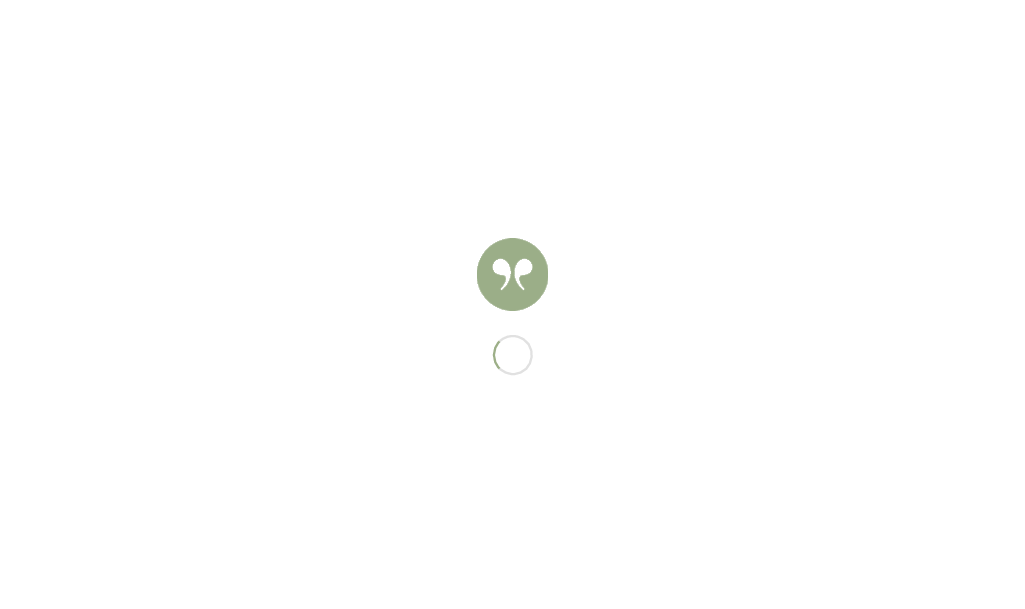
%!PS
<< /PageSize [1025 609] >> setpagedevice
/m/moveto load def
/c/rcurveto load def
/s/stroke load def
/w/setlinewidth load def
/C { dup -16 bitshift 255 div exch dup -8 bitshift 255 and 255 div exch 255 and 255 div setrgbcolor } def
/R { rectfill } def
/I { 5 dict begin { /h /w /y /x /name } { exch def } forall
  gsave x y translate w h scale
  w h 8 [w 0 0 h 0 0] name (r) file false 3 colorimage grestore end } def
0 609 translate 1 -1 scale
4 setmiterlimit
16#FFFFFF C
0 0 1025 609 R
(1.rgb) 477 238 71 73 I
16#E1E1E1 C
2 w
499.5 341.5 m 4.5 -4.5 11 -6.5 17 -5 c 22.5 4.5 19 37.5 -3.5 37.5 c -5 0 -10 -2 -13.5 -5.5 c s
16#9DAF88 C
499.5 368.5 m -7.5 -7.5 -7.5 -19.5 0 -27 c s
showpage
